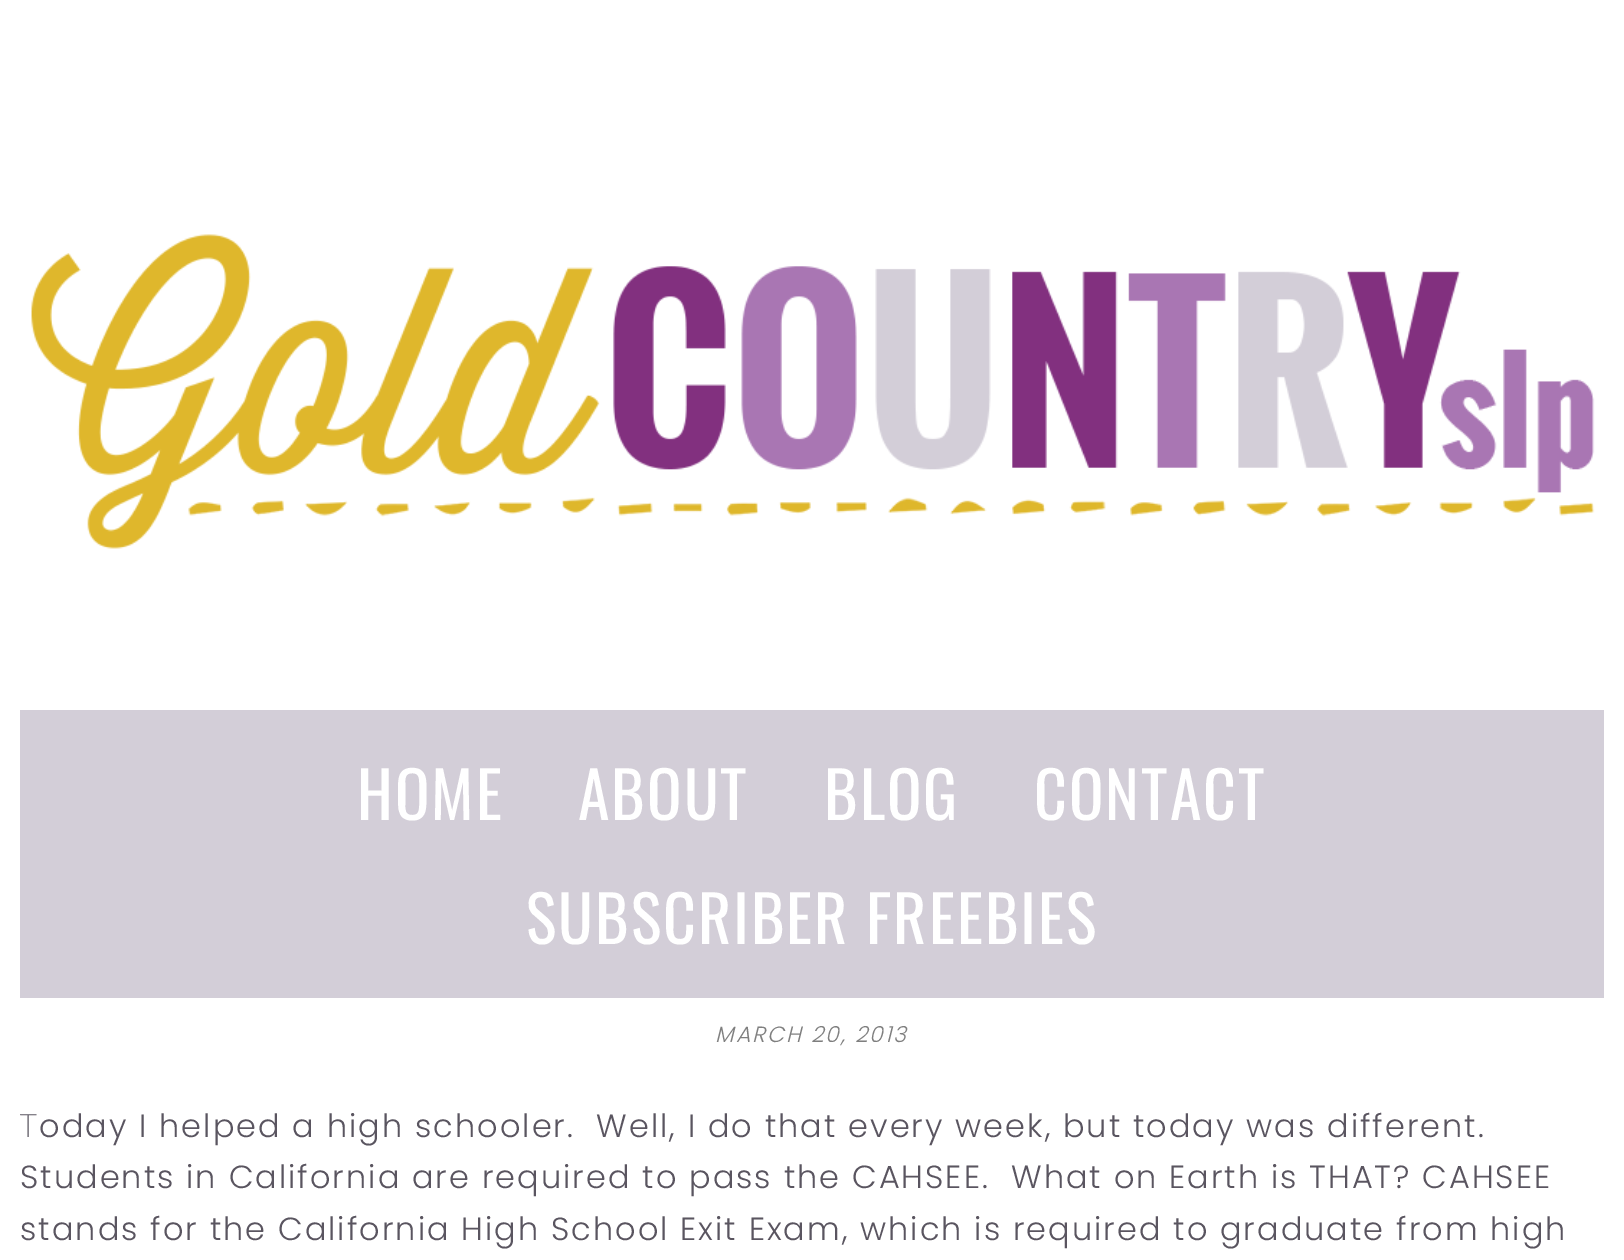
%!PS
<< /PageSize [1624 1260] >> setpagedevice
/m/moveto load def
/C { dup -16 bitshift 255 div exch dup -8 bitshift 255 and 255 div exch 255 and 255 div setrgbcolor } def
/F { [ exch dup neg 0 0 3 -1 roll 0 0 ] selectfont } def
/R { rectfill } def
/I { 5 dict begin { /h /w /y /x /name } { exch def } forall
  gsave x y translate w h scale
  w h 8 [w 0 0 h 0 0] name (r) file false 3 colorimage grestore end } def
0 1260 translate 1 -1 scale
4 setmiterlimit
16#FFFFFF C
0 0 1624 1260 R
(1.rgb) 31 234 1564 315 I
16#D3CED8 C
20 710 1584 288 R
/Oswald-Regular 64 F
16#FFFFFF C
357 820 m 2 0 (HOME) ashow
578 820 m 2 0 (ABOUT) ashow
824 820 m 2 0 (BLOG) ashow
1034 820 m 2 0 (CONTACT) ashow
526 944 m 2 0 (SUBSCRIBER FREEBIES) ashow
/Poppins-LightItalic 22 F
16#7F7F7F C
715 1042 m 2 0 (MARCH 20, 2013) ashow
/NotoSans-ExtraLight 32 F
16#5A5560 C
20 1137 m 2 0 (T) ashow
/Poppins-Light 32 F
39 1137 m 2 0 (oday I helped a high schooler.  Well, I do that every week, but today was different.) ashow
20 1188 m 2 0 (Students in California are required to pass the CAHSEE.  What on Earth is THAT? CAHSEE) ashow
20 1240 m 2 0 (stands for the California High School Exit Exam, which is required to graduate from high) ashow
showpage
